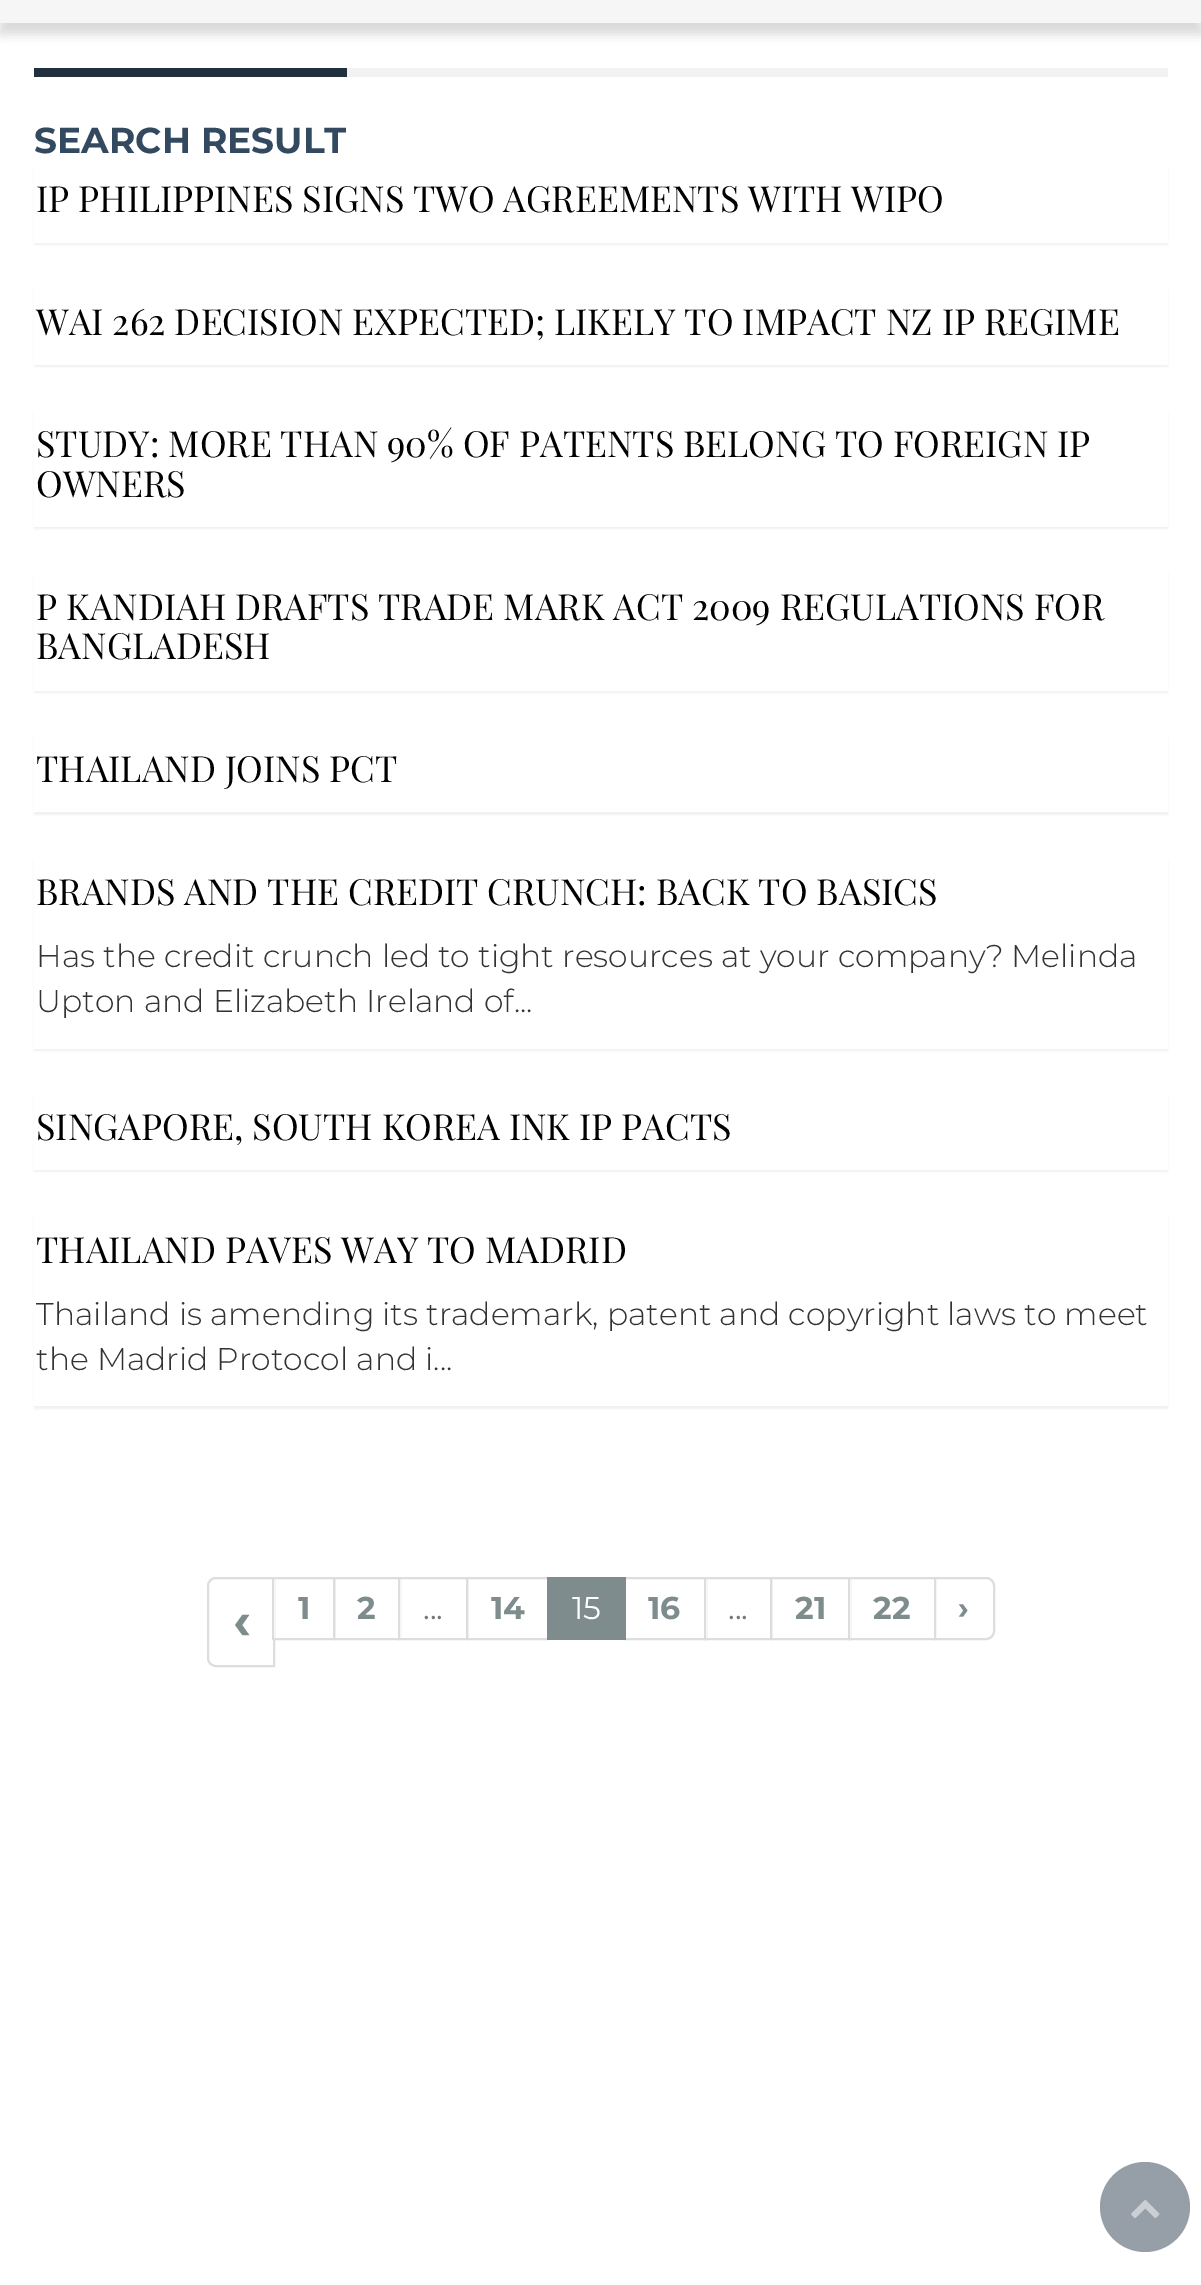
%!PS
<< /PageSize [1201 2285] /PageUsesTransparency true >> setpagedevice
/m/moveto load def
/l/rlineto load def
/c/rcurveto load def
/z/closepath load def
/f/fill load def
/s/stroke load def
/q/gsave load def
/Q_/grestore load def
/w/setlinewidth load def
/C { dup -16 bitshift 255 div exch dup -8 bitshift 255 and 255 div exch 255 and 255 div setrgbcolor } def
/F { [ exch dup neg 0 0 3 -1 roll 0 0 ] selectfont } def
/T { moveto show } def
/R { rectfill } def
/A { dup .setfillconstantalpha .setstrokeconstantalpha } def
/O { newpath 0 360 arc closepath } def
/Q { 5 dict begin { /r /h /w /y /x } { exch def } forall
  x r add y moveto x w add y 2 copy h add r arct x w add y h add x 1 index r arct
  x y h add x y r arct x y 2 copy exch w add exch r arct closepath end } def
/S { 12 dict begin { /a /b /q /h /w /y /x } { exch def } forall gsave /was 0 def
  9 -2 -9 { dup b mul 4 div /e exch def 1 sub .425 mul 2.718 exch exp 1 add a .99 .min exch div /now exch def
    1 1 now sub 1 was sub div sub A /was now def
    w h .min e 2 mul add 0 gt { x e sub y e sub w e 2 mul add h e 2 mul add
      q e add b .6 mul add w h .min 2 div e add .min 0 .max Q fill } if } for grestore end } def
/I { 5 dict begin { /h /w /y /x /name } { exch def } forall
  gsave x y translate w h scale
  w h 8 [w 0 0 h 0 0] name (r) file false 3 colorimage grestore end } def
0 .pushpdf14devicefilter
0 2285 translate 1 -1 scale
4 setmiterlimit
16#FFFFFF C
0 0 1201 2285 R
16#000000 C
0 -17 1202 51 0 5.5 .15 S
16#F6F6F6 C
0 0 1201 23 R
16#F2F2F2 C
347 68 821 9 R
16#20303F C
34 68 313 9 R
/Montserrat-Bold 36 F
16#32495F C
(SEARCH RESULT) 34 153 T
16#000000 C
34 167 1134 78 0 1 .05 S
16#FFFFFF C
34 166 1134 77 R
/PlayfairDisplay-Regular 36 F
16#000000 C
(IP PHILIPPINES SIGNS TWO AGREEMENTS WITH WIPO) 36 212 T
34 290 1134 77 0 1 .05 S
16#FFFFFF C
34 289 1134 76 R
16#000000 C
(WAI 262 DECISION EXPECTED; LIKELY TO IMPACT NZ IP REGIME) 36 335 T
34 412 1134 117 0 1 .05 S
16#FFFFFF C
34 411 1134 116 R
16#000000 C
(STUDY: MORE THAN 90% OF PATENTS BELONG TO FOREIGN IP) 36 457 T
(OWNERS) 36 497 T
34 574 1134 119 0 1 .05 S
16#FFFFFF C
34 573 1134 118 R
16#000000 C
(P KANDIAH DRAFTS TRADE MARK ACT 2009 REGULATIONS FOR) 36 620 T
(BANGLADESH) 36 659 T
34 738 1134 77 0 1 .05 S
16#FFFFFF C
34 737 1134 75 R
16#000000 C
(THAILAND JOINS PCT) 36 782 T
34 860 1134 191 0 1 .05 S
16#FFFFFF C
34 859 1134 190 R
16#000000 C
(BRANDS AND THE CREDIT CRUNCH: BACK TO BASICS) 36 905 T
/Montserrat-Light 31.5 F
16#333333 C
(Has the credit crunch led to tight resources at your company? Melinda) 36 967 T
(Upton and Elizabeth Ireland of...) 36 1012 T
16#000000 C
34 1096 1134 76 0 1 .05 S
16#FFFFFF C
34 1095 1134 75 R
/PlayfairDisplay-Regular 36 F
16#000000 C
(SINGAPORE, SOUTH KOREA INK IP PACTS) 36 1140 T
34 1217 1134 192 0 1 .05 S
16#FFFFFF C
34 1216 1134 190 R
16#000000 C
(THAILAND PAVES WAY TO MADRID) 36 1263 T
/Montserrat-Light 31.5 F
16#333333 C
(Thailand is amending its trademark, patent and copyright laws to meet) 36 1325 T
(the Madrid Protocol and i...) 36 1370 T
16#DDDDDD C
2 w
216 1578 m 58 0 l 0 88 l -58 0 l -4.5 0 -8 -3.5 -8 -8 c 0 -72 l 0 -4.5 3.5 -8 8 -8 c z s
16#FFFFFF C
274 1579 1 59 R
16#DDDDDD C
273 1578 61 61 rectstroke
/Montserrat-Bold 31.5 F
16#7F8C8D C
(1) 298 1619 T
16#DDDDDD C
334 1578 66 61 rectstroke
16#7F8C8D C
(2) 357 1619 T
16#FFFFFF C
400 1579 1 59 R
16#DDDDDD C
399 1578 68 61 rectstroke
467 1578 81 61 rectstroke
16#7F8C8D C
(14) 491 1619 T
16#DDDDDD C
624 1578 82 61 rectstroke
16#7F8C8D C
547 1577 79 63 R
/Montserrat-Regular 31.5 F
16#FFFFFF C
(15) 572 1619 T
/Montserrat-Bold 31.5 F
16#7F8C8D C
(16) 648 1619 T
16#FFFFFF C
706 1579 1 59 R
16#DDDDDD C
705 1578 66 61 rectstroke
771 1578 79 61 rectstroke
16#7F8C8D C
(21) 795 1619 T
16#FFFFFF C
850 1579 1 59 R
16#DDDDDD C
849 1578 86 61 rectstroke
16#7F8C8D C
(22) 873 1619 T
16#FFFFFF C
935 1578 m 51 0 l 4.5 0 8 3.5 8 8 c 0 45 l 0 4.5 -3.5 8 -8 8 c -51 0 l z q f Q_
16#DDDDDD C
s
16#7F8C8D C
(›) 958 1619 T
/Montserrat-Bold 52 F
(‹) 233 1639 T
/Montserrat-Regular 31.5 F
16#777777 C
(...) 423 1619 T
(...) 728 1619 T
16#969FA8 C
1145 2207 45 O f
(1.rgb) 1131 2200 29 19 I
.poppdf14devicefilter showpage
